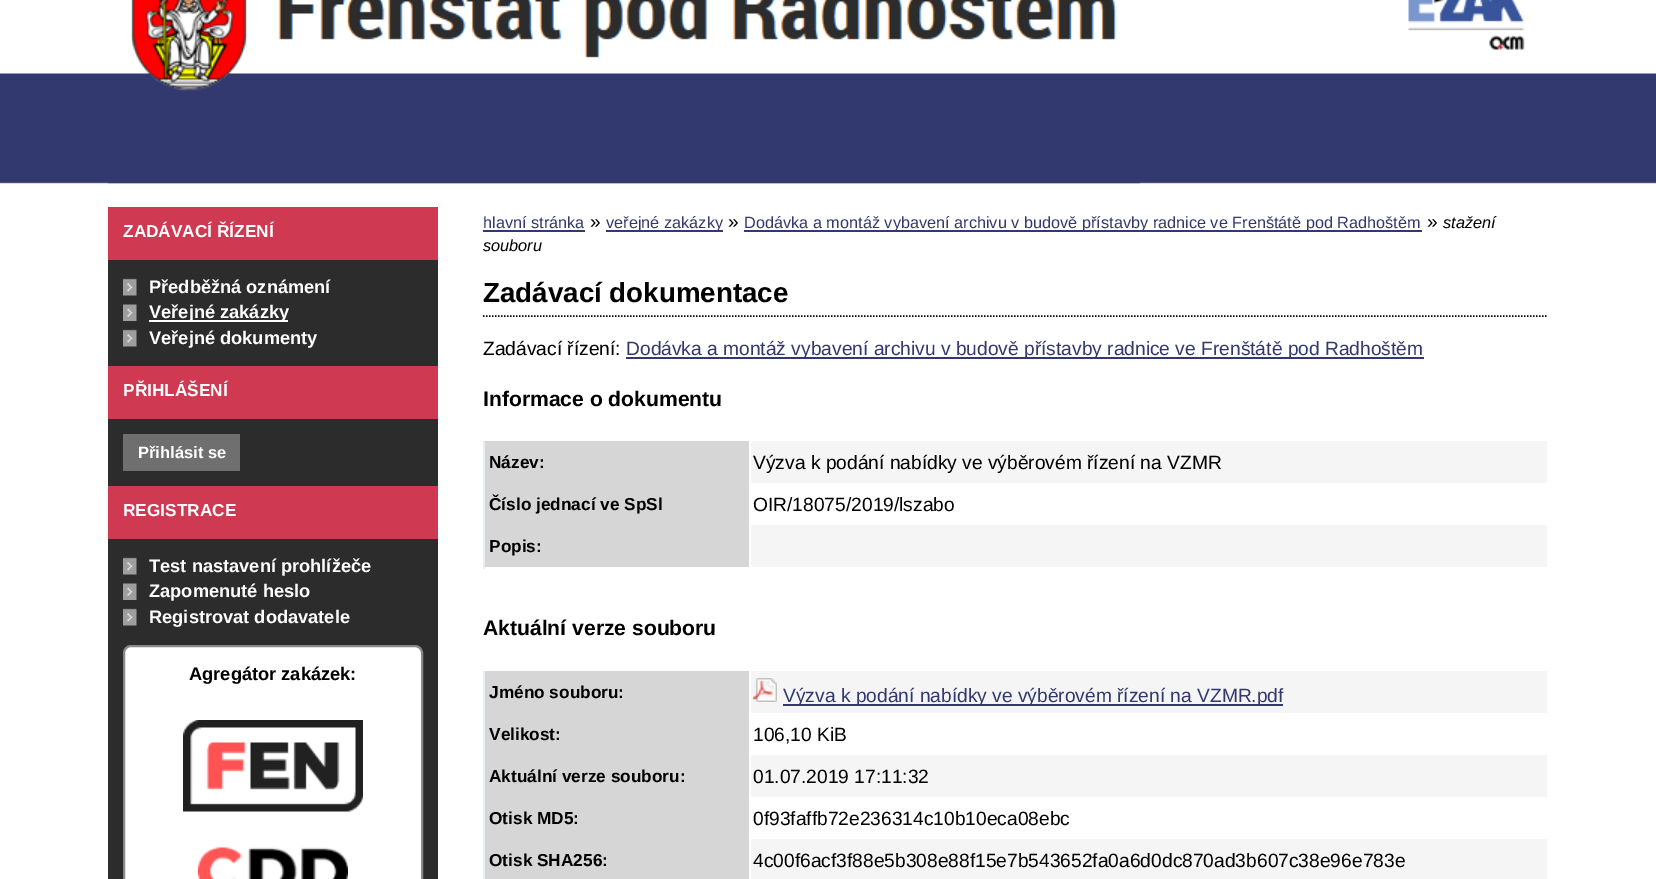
%!PS
<< /PageSize [1656 879] >> setpagedevice
/m/moveto load def
/l/rlineto load def
/f/fill load def
/s/stroke load def
/q/gsave load def
/Q_/grestore load def
/w/setlinewidth load def
/C { dup -16 bitshift 255 div exch dup -8 bitshift 255 and 255 div exch 255 and 255 div setrgbcolor } def
/F { [ exch dup neg 0 0 3 -1 roll 0 0 ] selectfont } def
/T { moveto show } def
/R { rectfill } def
/Q { 5 dict begin { /r /h /w /y /x } { exch def } forall
  x r add y moveto x w add y 2 copy h add r arct x w add y h add x 1 index r arct
  x y h add x y r arct x y 2 copy exch w add exch r arct closepath end } def
/I { 5 dict begin { /h /w /y /x /name } { exch def } forall
  gsave x y translate w h scale
  w h 8 [w 0 0 h 0 0] name (r) file false 3 colorimage grestore end } def
0 879 translate 1 -1 scale
4 setmiterlimit
16#FFFFFF C
0 0 1656 879 R
(1.rgb) 0 73 1656 111 I
(2.rgb) 108 0 1032 184 I
(3.rgb) 1408 0 117 50 I
16#2C2C2C C
108 260 330 619 R
16#CF3A52 C
108 207 330 53 R
/LiberationSans-Bold 17.25 F
16#FFFFFF C
(ZADÁVACÍ ŘÍZENÍ) 123 237 T
(4.rgb) 123 278 14 18 I
/LiberationSans-Bold 18.25 F
(Předběžná oznámení) 149 293 T
(5.rgb) 123 304 14 17 I
149 320 139 2 R
(Veřejné zakázky) 149 318 T
(4.rgb) 123 329 14 18 I
(Veřejné dokumenty) 149 344 T
16#CF3A52 C
108 366 330 53 R
/LiberationSans-Bold 17.25 F
16#FFFFFF C
(PŘIHLÁŠENÍ) 123 396 T
16#6F6F6F C
123 434 117 37 R
/LiberationSans-Bold 16.5 F
16#FFFFFF C
(Přihlásit se) 138 458 T
16#CF3A52 C
108 486 330 53 R
/LiberationSans-Bold 17.25 F
16#FFFFFF C
(REGISTRACE) 123 516 T
(4.rgb) 123 557 14 18 I
/LiberationSans-Bold 18.25 F
(Test nastavení prohlížeče) 149 572 T
(5.rgb) 123 583 14 17 I
(Zapomenuté heslo) 149 597 T
(4.rgb) 123 608 14 18 I
(Registrovat dodavatele) 149 623 T
124 646 298 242 7 Q q f Q_
16#888888 C
2 w
s
16#000000 C
(Agregátor zakázek:) 189 680 T
(6.rgb) 183 720 180 92 I
(7.rgb) 198 847 150 32 I
/LiberationSans-Regular 16.3 F
16#32396F C
(hlavní stránka) 483 228 T
483 230 102 2 R
/LiberationSans-Regular 19.2 F
16#000000 C
(») 590 228 T
16#32396F C
606 230 117 2 R
/LiberationSans-Regular 16.3 F
(veřejné zakázky) 606 228 T
/LiberationSans-Regular 19.2 F
16#000000 C
(») 728 228 T
16#32396F C
744 230 678 2 R
/LiberationSans-Regular 16.3 F
(Dodávka a montáž vybavení archivu v budově přístavby radnice ve Frenštátě pod Radhoštěm) 744 228 T
/LiberationSans-Regular 19.2 F
16#000000 C
(») 1427 228 T
/LiberationSans-Italic 16.3 F
(stažení) 1443 228 T
(souboru) 483 251 T
1.5 w
[1.5 1.5] 0 setdash
483 316 m 1065 0 l s
/LiberationSans-Bold 27.75 F
(Zadávací dokumentace) 483 302 T
/LiberationSans-Regular 19.2 F
(Zadávací řízení:) 483 355 T
16#32396F C
626 357 798 2 R
(Dodávka a montáž vybavení archivu v budově přístavby radnice ve Frenštátě pod Radhoštěm) 626 355 T
/LiberationSans-Bold 21.1 F
16#000000 C
(Informace o dokumentu) 483 406 T
16#F5F5F5 C
751 441 796 42 R
16#D6D6D6 C
485 441 264 126 R
/LiberationSans-Bold 17.25 F
16#000000 C
(Název:) 489 468 T
/LiberationSans-Regular 19.2 F
(Výzva k podání nabídky ve výběrovém řízení na VZMR) 753 469 T
/LiberationSans-Bold 17.25 F
(Číslo jednací ve SpSl) 489 510 T
/LiberationSans-Regular 19.2 F
(OIR/18075/2019/lszabo) 753 511 T
16#F5F5F5 C
751 525 796 42 R
16#E5EFF5 C
483 441 2 128 R
/LiberationSans-Bold 17.25 F
16#000000 C
(Popis:) 489 552 T
/LiberationSans-Bold 21.1 F
(Aktuální verze souboru) 483 635 T
16#F5F5F5 C
751 671 796 42 R
16#D6D6D6 C
485 671 264 208 R
/LiberationSans-Bold 17.25 F
16#000000 C
(Jméno souboru:) 489 698 T
(8.rgb) 753 678 24 24 I
16#32396F C
783 704 500 2 R
/LiberationSans-Regular 19.2 F
(Výzva k podání nabídky ve výběrovém řízení na VZMR.pdf) 783 702 T
/LiberationSans-Bold 17.25 F
16#000000 C
(Velikost:) 489 740 T
/LiberationSans-Regular 19.2 F
(106,10 KiB) 753 741 T
16#F5F5F5 C
751 755 796 42 R
/LiberationSans-Bold 17.25 F
16#000000 C
(Aktuální verze souboru:) 489 782 T
/LiberationSans-Regular 19.2 F
(01.07.2019 17:11:32) 753 783 T
/LiberationSans-Bold 17.25 F
(Otisk MD5:) 489 824 T
/LiberationSans-Regular 19.2 F
(0f93faffb72e236314c10b10eca08ebc) 753 825 T
16#F5F5F5 C
751 839 796 40 R
16#E5EFF5 C
483 671 2 208 R
/LiberationSans-Bold 17.25 F
16#000000 C
(Otisk SHA256:) 489 866 T
/LiberationSans-Regular 19.2 F
(4c00f6acf3f88e5b308e88f15e7b543652fa0a6d0dc870ad3b607c38e96e783e) 753 867 T
showpage
